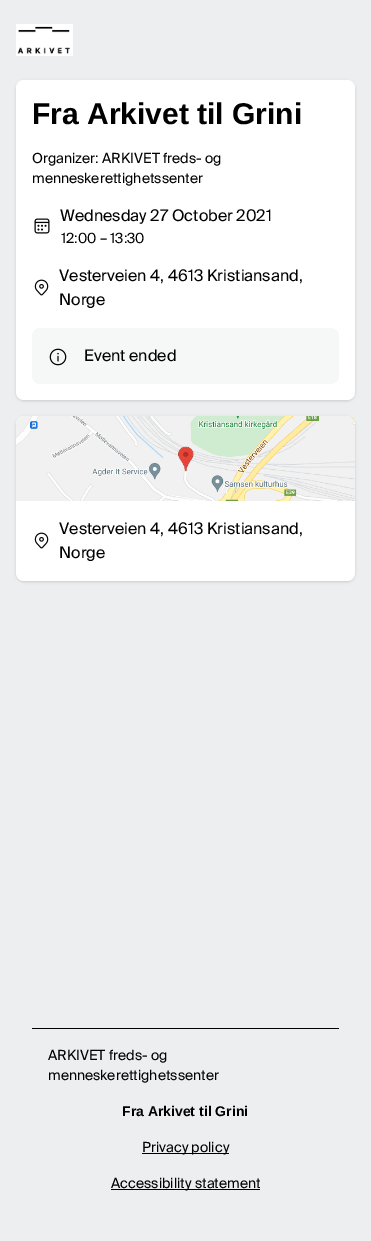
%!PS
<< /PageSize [371 1241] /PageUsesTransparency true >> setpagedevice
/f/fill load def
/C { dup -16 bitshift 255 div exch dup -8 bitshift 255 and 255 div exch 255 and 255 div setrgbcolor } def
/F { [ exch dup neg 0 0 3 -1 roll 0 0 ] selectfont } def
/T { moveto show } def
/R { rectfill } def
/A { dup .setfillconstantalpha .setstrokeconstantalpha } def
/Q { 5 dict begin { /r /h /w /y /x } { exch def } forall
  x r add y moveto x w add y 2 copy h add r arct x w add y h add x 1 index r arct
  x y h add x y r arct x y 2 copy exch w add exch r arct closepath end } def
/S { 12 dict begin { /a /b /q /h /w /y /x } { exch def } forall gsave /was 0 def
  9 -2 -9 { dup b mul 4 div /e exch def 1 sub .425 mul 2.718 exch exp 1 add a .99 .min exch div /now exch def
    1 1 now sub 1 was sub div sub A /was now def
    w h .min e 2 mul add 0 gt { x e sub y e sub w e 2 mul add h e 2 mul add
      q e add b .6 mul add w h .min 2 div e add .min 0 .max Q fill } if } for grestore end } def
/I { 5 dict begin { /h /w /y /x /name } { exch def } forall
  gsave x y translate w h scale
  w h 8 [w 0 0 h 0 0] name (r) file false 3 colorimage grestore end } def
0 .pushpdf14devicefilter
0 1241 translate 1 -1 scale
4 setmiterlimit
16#EDEEEF C
0 0 371 1241 R
(1.rgb) 16 24 57 32 I
16#000000 C
17 82 337 318 7 1 .1 S
16 81 339 320 8 1.5 .1 S
16#FFFFFF C
16 80 339 320 8 Q f
/LiberationSans-Bold 30 F
16#000000 C
(Fra Arkivet til Grini) 32 124 T
/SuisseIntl-Regular 14 F
(Organizer: ARKIVET freds- og) 32 163 T
(menneskerettighetssenter) 32 183 T
(2.rgb) 34 218 16 16 I
/SuisseIntl-Regular 16 F
(Wednesday 27 October 2021) 60 221 T
/SuisseIntl-Regular 14 F
(12:00 – 13:30) 61 243 T
(3.rgb) 34 279 15 17 I
/SuisseIntl-Regular 16 F
(Vesterveien 4, 4613 Kristiansand,) 59 281 T
(Norge) 59 305 T
16#F6F7F7 C
32 328 307 56 8 Q f
(4.rgb) 49 348 18 18 I
16#000000 C
(Event ended) 84 361 T
17 418 337 163 7 1 .1 S
16 417 339 165 8 1.5 .1 S
16#FFFFFF C
16 416 339 165 8 Q f
(5.rgb) 16 416 339 85 I
(3.rgb) 34 532 15 17 I
16#000000 C
(Vesterveien 4, 4613 Kristiansand,) 59 534 T
(Norge) 59 558 T
32 1028 307 1 R
/SuisseIntl-Regular 14 F
(ARKIVET freds- og) 48 1060 T
(menneskerettighetssenter) 48 1080 T
/LiberationSans-Bold 14 F
(Fra Arkivet til Grini) 122 1116 T
142 1153 87 1 R
/SuisseIntl-Regular 14 F
(Privacy policy) 142 1152 T
111 1189 149 1 R
(Accessibility statement) 111 1188 T
.poppdf14devicefilter showpage
